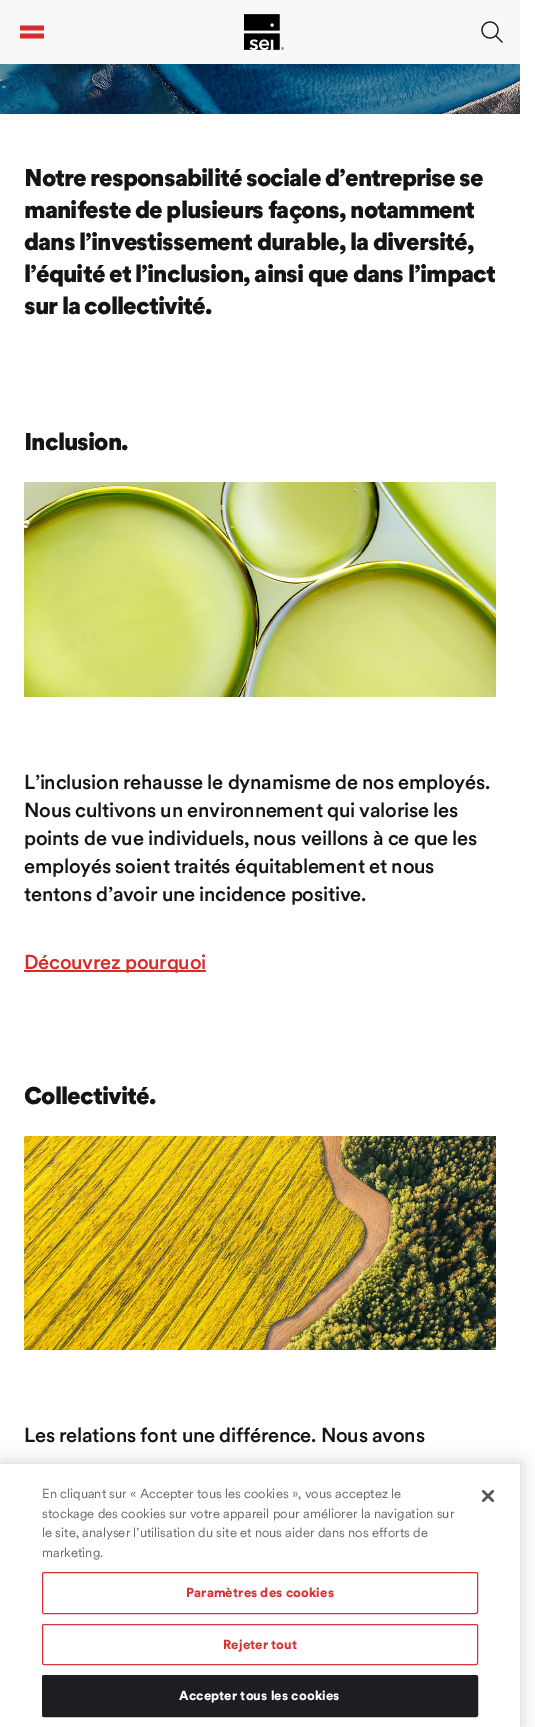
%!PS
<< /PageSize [535 1727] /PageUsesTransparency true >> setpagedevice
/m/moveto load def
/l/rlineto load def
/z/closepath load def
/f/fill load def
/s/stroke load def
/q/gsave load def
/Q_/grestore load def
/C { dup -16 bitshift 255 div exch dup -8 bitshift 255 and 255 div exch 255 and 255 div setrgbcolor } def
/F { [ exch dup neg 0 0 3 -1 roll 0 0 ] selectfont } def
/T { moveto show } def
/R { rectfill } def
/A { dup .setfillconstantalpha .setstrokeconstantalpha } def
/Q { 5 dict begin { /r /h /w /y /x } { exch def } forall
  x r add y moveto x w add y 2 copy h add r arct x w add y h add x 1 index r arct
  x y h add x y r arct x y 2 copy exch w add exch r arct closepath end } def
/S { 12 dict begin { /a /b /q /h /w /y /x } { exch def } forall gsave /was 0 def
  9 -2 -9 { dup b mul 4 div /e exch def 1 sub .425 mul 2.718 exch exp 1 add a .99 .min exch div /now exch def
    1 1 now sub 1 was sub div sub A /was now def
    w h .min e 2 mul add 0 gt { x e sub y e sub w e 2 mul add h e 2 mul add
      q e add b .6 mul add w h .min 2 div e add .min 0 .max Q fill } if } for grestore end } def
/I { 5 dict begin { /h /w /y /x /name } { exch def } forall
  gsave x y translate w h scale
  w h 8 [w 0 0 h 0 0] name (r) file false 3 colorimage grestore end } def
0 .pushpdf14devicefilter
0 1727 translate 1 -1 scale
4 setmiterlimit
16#FFFFFF C
0 0 535 1727 R
16#F8F8F8 C
0 0 520 64 R
16#D82B2A C
20 33.5 m 24 0 l 0 5 l -24 0 l z 20 25.5 m 24 0 l 0 5 l -24 0 l z f
(1.rgb) 244 14 40 36 I
(2.rgb) 481 21 22 22 I
(3.rgb) 0 64 520 50 I
/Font-Black 24 F
16#131517 C
24 186 m -1 0 (Notre responsabilité sociale d’entreprise se) ashow
24 218 m -1 0 (manifeste de plusieurs façons, notamment) ashow
24 250 m -1 0 (dans l’investissement durable, la diversité,) ashow
24 282 m -1 0 (l’équité et l’inclusion, ainsi que dans l’impact) ashow
24 314 m -1 0 (sur la collectivité.) ashow
24 450 m -1 0 (Inclusion.) ashow
(4.rgb) 24 482 472 215 I
/Font-Medium 20 F
24 789 m -.3 0 (L’inclusion rehausse le dynamisme de nos employés.) ashow
24 817 m -.3 0 (Nous cultivons un environnement qui valorise les) ashow
24 845 m -.3 0 (points de vue individuels, nous veillons à ce que les) ashow
24 873 m -.3 0 (employés soient traités équitablement et nous) ashow
24 901 m -.3 0 (tentons d’avoir une incidence positive.) ashow
16#D82B2A C
24 970 182 2 R
24 969 m -.3 0 (Découvrez pourquoi) ashow
/Font-Black 24 F
16#131517 C
24 1104 m -1 0 (Collectivité.) ashow
(5.rgb) 24 1136 472 214 I
/Font-Medium 20 F
24 1442 m -.3 0 (Les relations font une différence. Nous avons) ashow
16#000000 C
0 1464 520 263 0 9 .2 S
16#FFFFFF C
0 1464 520 263 R
/Font-Regular 13 F
16#696969 C
(En cliquant sur « Accepter tous les cookies », vous acceptez le) 42 1498 T
(stockage des cookies sur votre appareil pour améliorer la navigation sur) 42 1518 T
(le site, analyser l’utilisation du site et nous aider dans nos efforts de) 42 1537 T
(marketing.) 42 1557 T
16#DA3336 C
42.5 1572.5 435 41 1.5 Q s
/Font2-Black 13 F
186 1597 m .1 0 (Paramètres des cookies) ashow
42.5 1624.5 435 40 1.5 Q s
223 1649 m .1 0 (Rejeter tout) ashow
16#1C1E22 C
42.5 1675.5 435 41 1.5 Q q f Q_
s
16#FFFFFF C
179 1700 m .1 0 (Accepter tous les cookies) ashow
(6.rgb) 482 1490 12 12 I
.poppdf14devicefilter showpage
